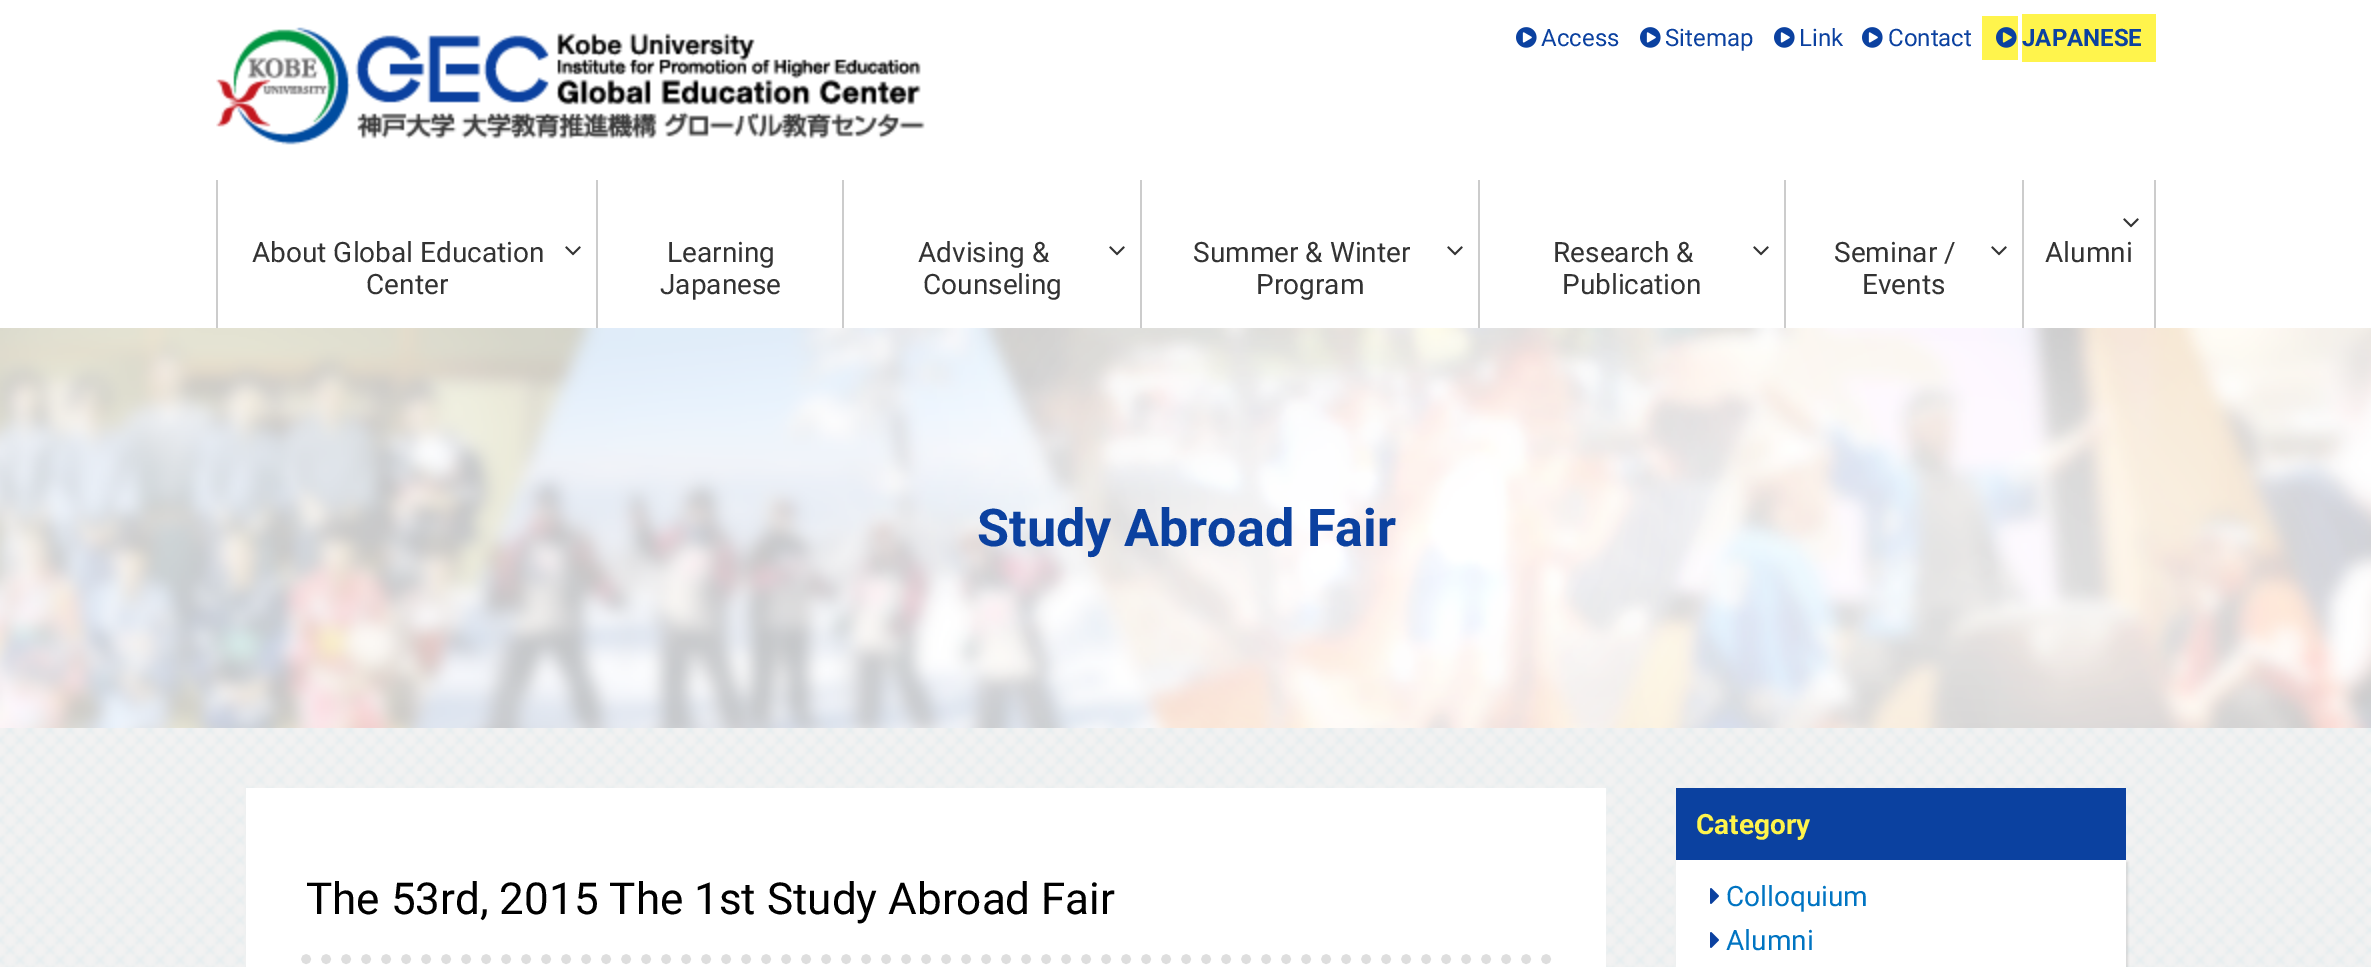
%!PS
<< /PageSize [2371 967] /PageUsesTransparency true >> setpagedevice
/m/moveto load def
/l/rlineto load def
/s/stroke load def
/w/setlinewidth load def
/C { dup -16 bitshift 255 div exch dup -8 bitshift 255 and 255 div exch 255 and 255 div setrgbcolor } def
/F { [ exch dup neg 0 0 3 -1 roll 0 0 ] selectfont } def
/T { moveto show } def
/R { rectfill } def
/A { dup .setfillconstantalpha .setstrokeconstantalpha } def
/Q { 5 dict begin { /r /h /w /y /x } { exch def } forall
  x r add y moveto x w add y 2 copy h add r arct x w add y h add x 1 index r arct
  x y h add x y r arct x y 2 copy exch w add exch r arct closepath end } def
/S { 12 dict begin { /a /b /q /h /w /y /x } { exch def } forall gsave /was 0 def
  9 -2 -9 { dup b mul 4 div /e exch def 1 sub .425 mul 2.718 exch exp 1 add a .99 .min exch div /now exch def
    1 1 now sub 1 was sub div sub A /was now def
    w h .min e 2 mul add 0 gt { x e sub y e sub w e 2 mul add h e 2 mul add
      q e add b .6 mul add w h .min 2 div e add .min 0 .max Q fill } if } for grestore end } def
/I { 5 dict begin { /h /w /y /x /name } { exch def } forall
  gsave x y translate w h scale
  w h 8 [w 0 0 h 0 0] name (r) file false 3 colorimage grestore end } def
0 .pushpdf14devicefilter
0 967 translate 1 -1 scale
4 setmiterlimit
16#FFFFFF C
0 0 2371 967 R
(1.rgb) 0 728 2371 239 I
(2.rgb) 216 27 709 118 I
(3.rgb) 1516 27 21 21 I
/Roboto-Regular 24 F
16#0B41A0 C
(Access) 1541 46 T
(3.rgb) 1640 27 21 21 I
(Sitemap) 1665 46 T
(3.rgb) 1774 27 21 21 I
(Link) 1799 46 T
(3.rgb) 1862 27 21 21 I
(Contact) 1888 46 T
16#FFF44C C
1982 16 36 44 R
2022 14 134 48 R
(4.rgb) 1996 27 21 21 I
/Roboto-Bold 24 F
16#0B41A0 C
(JAPANESE) 2022 46 T
16#CCCCCC C
216 180 2 148 R
/Roboto-Regular 28 F
16#333333 C
(About Global Education) 252 262 T
(5.rgb) 565 246 16 10 I
(Center) 366 294 T
16#CCCCCC C
596 180 2 148 R
16#333333 C
(Learning) 667 262 T
(Japanese) 660 294 T
16#CCCCCC C
842 180 2 148 R
16#333333 C
(Advising &) 918 262 T
(5.rgb) 1109 246 16 10 I
(Counseling) 923 294 T
16#CCCCCC C
1140 180 2 148 R
16#333333 C
(Summer & Winter) 1193 262 T
(5.rgb) 1447 246 16 10 I
(Program) 1256 294 T
16#CCCCCC C
1478 180 2 148 R
16#333333 C
(Research &) 1553 262 T
(5.rgb) 1753 246 16 10 I
(Publication) 1562 294 T
16#CCCCCC C
1784 180 2 148 R
16#333333 C
(Seminar /) 1834 262 T
(5.rgb) 1991 246 16 10 I
(Events) 1862 294 T
16#CCCCCC C
2154 180 2 148 R
2022 180 2 148 R
(5.rgb) 2123 218 16 10 I
16#333333 C
(Alumni) 2045 262 T
(6.rgb) 0 328 2371 400 I
/Roboto-Bold 52 F
16#0B41A0 C
(Study Abroad Fair) 977 546 T
16#FFFFFF C
246 788 1360 179 R
16#DEDEDE C
10 w
1 setlinecap
[0 20] 0 setdash
306 959 m 1240 0 l s
/Roboto-Regular 44 F
16#000000 C
(The 53rd, 2015 The 1st Study Abroad Fair) 306 914 T
16#0B41A0 C
1676 788 450 72 R
/Roboto-Bold 28 F
16#FFF44C C
(Category) 1696 834 T
16#000000 C
1678 862 450 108 0 1 .1 S
16#FFFFFF C
1676 860 450 107 R
(7.rgb) 1710 888 9 16 I
/Roboto-Regular 28 F
16#0074C2 C
(Colloquium) 1726 906 T
(7.rgb) 1710 932 9 16 I
(Alumni) 1726 950 T
.poppdf14devicefilter showpage
